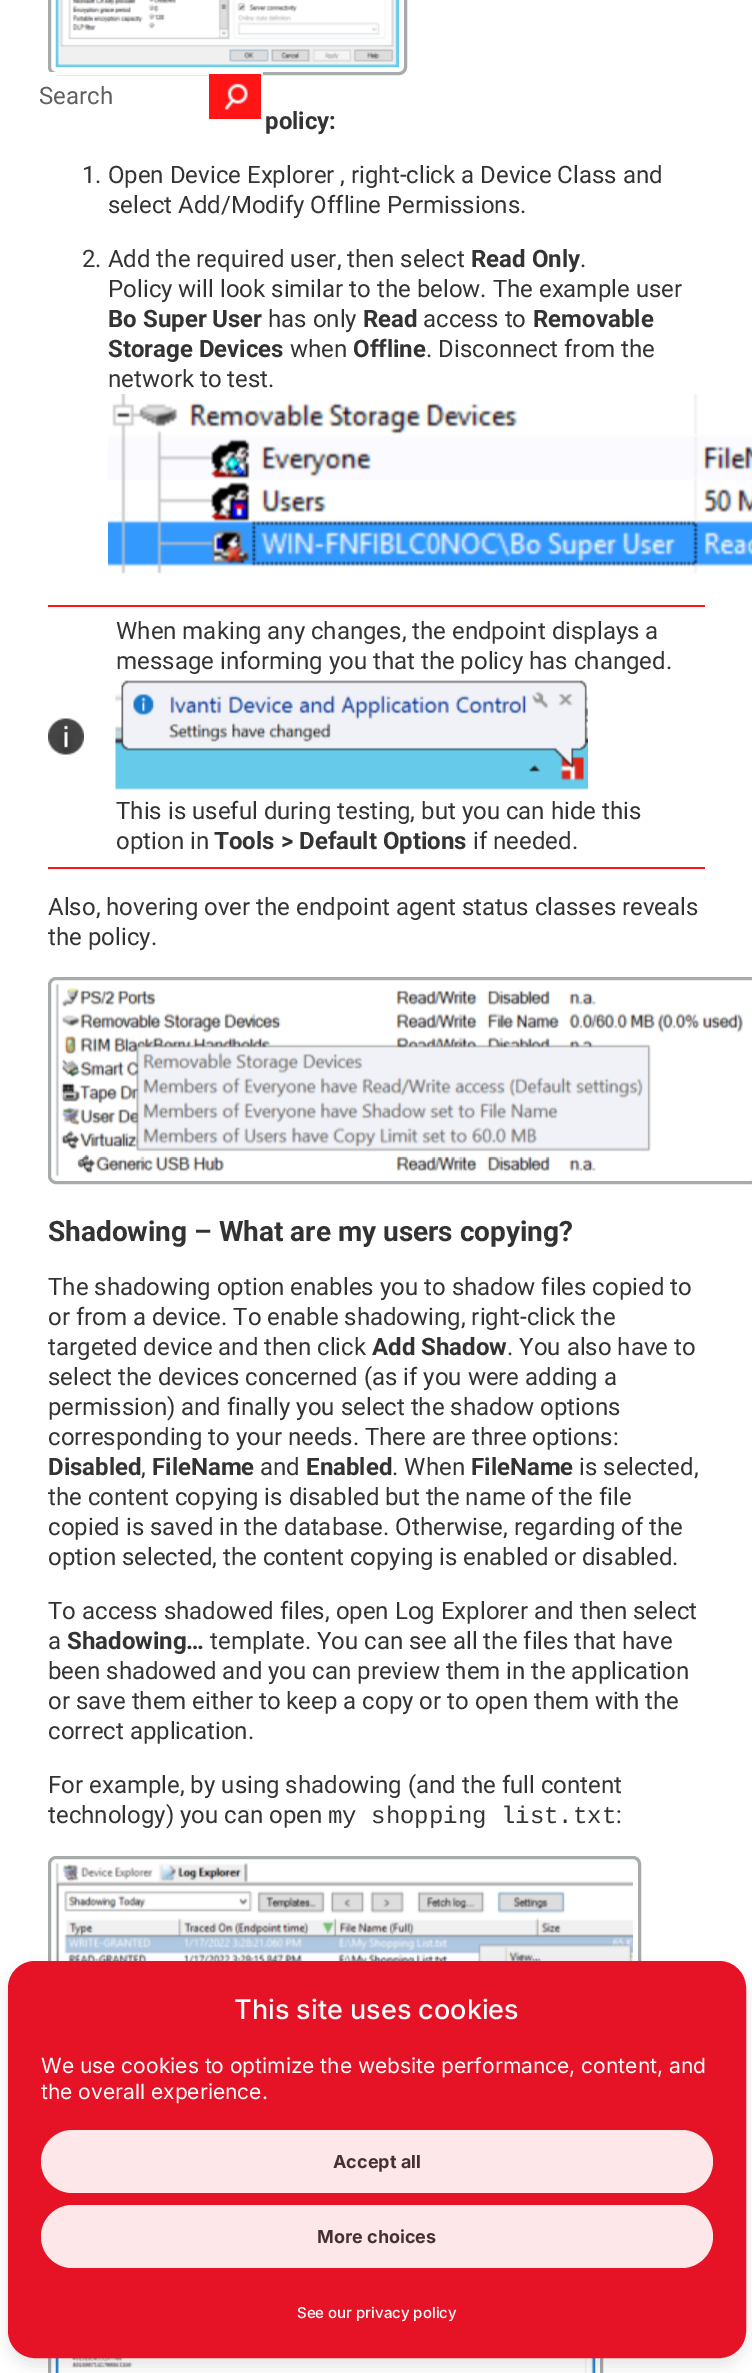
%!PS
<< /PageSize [752 2373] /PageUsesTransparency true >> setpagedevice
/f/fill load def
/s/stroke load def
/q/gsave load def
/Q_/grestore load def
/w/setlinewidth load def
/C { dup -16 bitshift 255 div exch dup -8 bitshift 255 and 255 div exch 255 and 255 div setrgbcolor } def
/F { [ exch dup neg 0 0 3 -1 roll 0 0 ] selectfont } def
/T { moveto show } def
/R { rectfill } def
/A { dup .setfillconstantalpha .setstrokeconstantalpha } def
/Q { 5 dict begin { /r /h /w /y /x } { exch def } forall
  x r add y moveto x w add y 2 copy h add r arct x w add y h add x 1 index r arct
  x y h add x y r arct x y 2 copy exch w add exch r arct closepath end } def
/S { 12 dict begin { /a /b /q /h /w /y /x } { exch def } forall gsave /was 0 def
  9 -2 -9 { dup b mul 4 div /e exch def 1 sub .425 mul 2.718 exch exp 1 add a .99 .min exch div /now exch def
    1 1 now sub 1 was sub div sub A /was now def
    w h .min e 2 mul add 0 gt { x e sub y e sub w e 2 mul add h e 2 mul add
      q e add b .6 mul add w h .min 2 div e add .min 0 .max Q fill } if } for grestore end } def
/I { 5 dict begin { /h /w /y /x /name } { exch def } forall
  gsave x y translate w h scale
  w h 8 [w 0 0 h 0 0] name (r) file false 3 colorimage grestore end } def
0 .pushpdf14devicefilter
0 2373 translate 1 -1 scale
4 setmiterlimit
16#FFFFFF C
0 0 752 2373 R
16#A7ABAC C
3 w
49.5 -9.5 356 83 6.5 Q s
16#FFFFFF C
50 72 159 3 R
/Roboto-Regular 24 F
16#5F5F5F C
(Search) 39 104 T
16#FF1515 C
209 74 52 45 R
(1.rgb) 224 83 24 27 I
16#FFFFFF C
209 72 54 2 R
261 72 2 3 R
(2.rgb) 55 0 344 68 I
/Roboto-Bold 24 F
16#333333 C
(policy:) 265 129 T
/Roboto-Regular 24 F
(1. Open Device Explorer , right-click a Device Class and) 82 183 T
(select Add/Modify Offline Permissions.) 108 213 T
(2. Add the required user, then select) 82 267 T
/Roboto-Bold 24 F
(Read Only) 471 267 T
/Roboto-Regular 24 F
(.) 580 267 T
(Policy will look similar to the below. The example user) 108 297 T
/Roboto-Bold 24 F
(Bo Super User) 108 327 T
/Roboto-Regular 24 F
(has only) 268 327 T
/Roboto-Bold 24 F
(Read) 363 327 T
/Roboto-Regular 24 F
(access to) 423 327 T
/Roboto-Bold 24 F
(Removable) 533 327 T
(Storage Devices) 108 357 T
/Roboto-Regular 24 F
(when) 290 357 T
/Roboto-Bold 24 F
(Offline) 353 357 T
/Roboto-Regular 24 F
(. Disconnect from the) 426 357 T
(network to test.) 108 387 T
(3.rgb) 108 394 644 180 I
(4.rgb) 48 718 36 37 I
16#FF1515 C
48 605 657 2 R
48 867 657 2 R
16#333333 C
(When making any changes, the endpoint displays a) 116 639 T
(message informing you that the policy has changed.) 116 669 T
(5.rgb) 115 680 473 110 I
(This is useful during testing, but you can hide this) 116 819 T
(option in) 116 849 T
/Roboto-Bold 24 F
(Tools > Default Options) 214 849 T
/Roboto-Regular 24 F
(if needed.) 473 849 T
(Also, hovering over the endpoint agent status classes reveals) 48 915 T
(the policy.) 48 945 T
16#A7ABAC C
49.5 978.5 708 204 6.5 Q s
(6.rgb) 55 983 689 194 I
/Roboto-Bold 28 F
16#333333 C
(Shadowing – What are my users copying?) 48 1241 T
/Roboto-Regular 24 F
(The shadowing option enables you to shadow files copied to) 48 1295 T
(or from a device. To enable shadowing, right-click the) 48 1325 T
(targeted device and then click) 48 1355 T
/Roboto-Bold 24 F
(Add Shadow) 372 1355 T
/Roboto-Regular 24 F
(. You also have to) 507 1355 T
(select the devices concerned \(as if you were adding a) 48 1385 T
(permission\) and finally you select the shadow options) 48 1415 T
(corresponding to your needs. There are three options:) 48 1445 T
/Roboto-Bold 24 F
(Disabled) 48 1475 T
/Roboto-Regular 24 F
(,) 141 1475 T
/Roboto-Bold 24 F
(FileName) 152 1475 T
/Roboto-Regular 24 F
(and) 260 1475 T
/Roboto-Bold 24 F
(Enabled) 306 1475 T
/Roboto-Regular 24 F
(. When) 392 1475 T
/Roboto-Bold 24 F
(FileName) 471 1475 T
/Roboto-Regular 24 F
(is selected,) 579 1475 T
(the content copying is disabled but the name of the file) 48 1505 T
(copied is saved in the database. Otherwise, regarding of the) 48 1535 T
(option selected, the content copying is enabled or disabled.) 48 1565 T
(To access shadowed files, open Log Explorer and then select) 48 1619 T
(a) 48 1649 T
/Roboto-Bold 24 F
(Shadowing…) 67 1649 T
/Roboto-Regular 24 F
(template. You can see all the files that have) 210 1649 T
(been shadowed and you can preview them in the application) 48 1679 T
(or save them either to keep a copy or to open them with the) 48 1709 T
(correct application.) 48 1739 T
(For example, by using shadowing \(and the full content) 48 1793 T
(technology\) you can open) 48 1823 T
/LiberationMono-Regular 24 F
(my shopping list.txt) 328 1823 T
/Roboto-Regular 24 F
(:) 616 1823 T
16#A7ABAC C
49.5 1857.5 590 204 6.5 Q s
(7.rgb) 55 1862 578 99 I
49.5 2299.5 552 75 rectstroke
(8.rgb) 55 2358 541 15 I
16#000000 C
8 1968 738 398 27 7.5 .1 S
16#E61226 C
9 1962 736 395 26 Q q f Q_
2 w
s
/Inter-Medium 27 F
16#FFFFFF C
(This site uses cookies) 234 2019 T
/Inter-Regular 21 F
(We use cookies to optimize the website performance, content, and) 41 2073 T
(the overall experience.) 41 2099 T
16#FDE7E9 C
41 2130 672 63 31.5 Q f
/Inter-Bold 18 F
16#453032 C
(Accept all) 333 2168 T
16#FDE7E9 C
41 2205 672 63 31.5 Q f
16#453032 C
(More choices) 317 2243 T
/Inter-Medium 15 F
16#FFFFFF C
(See our privacy policy) 297 2318 T
.poppdf14devicefilter showpage
